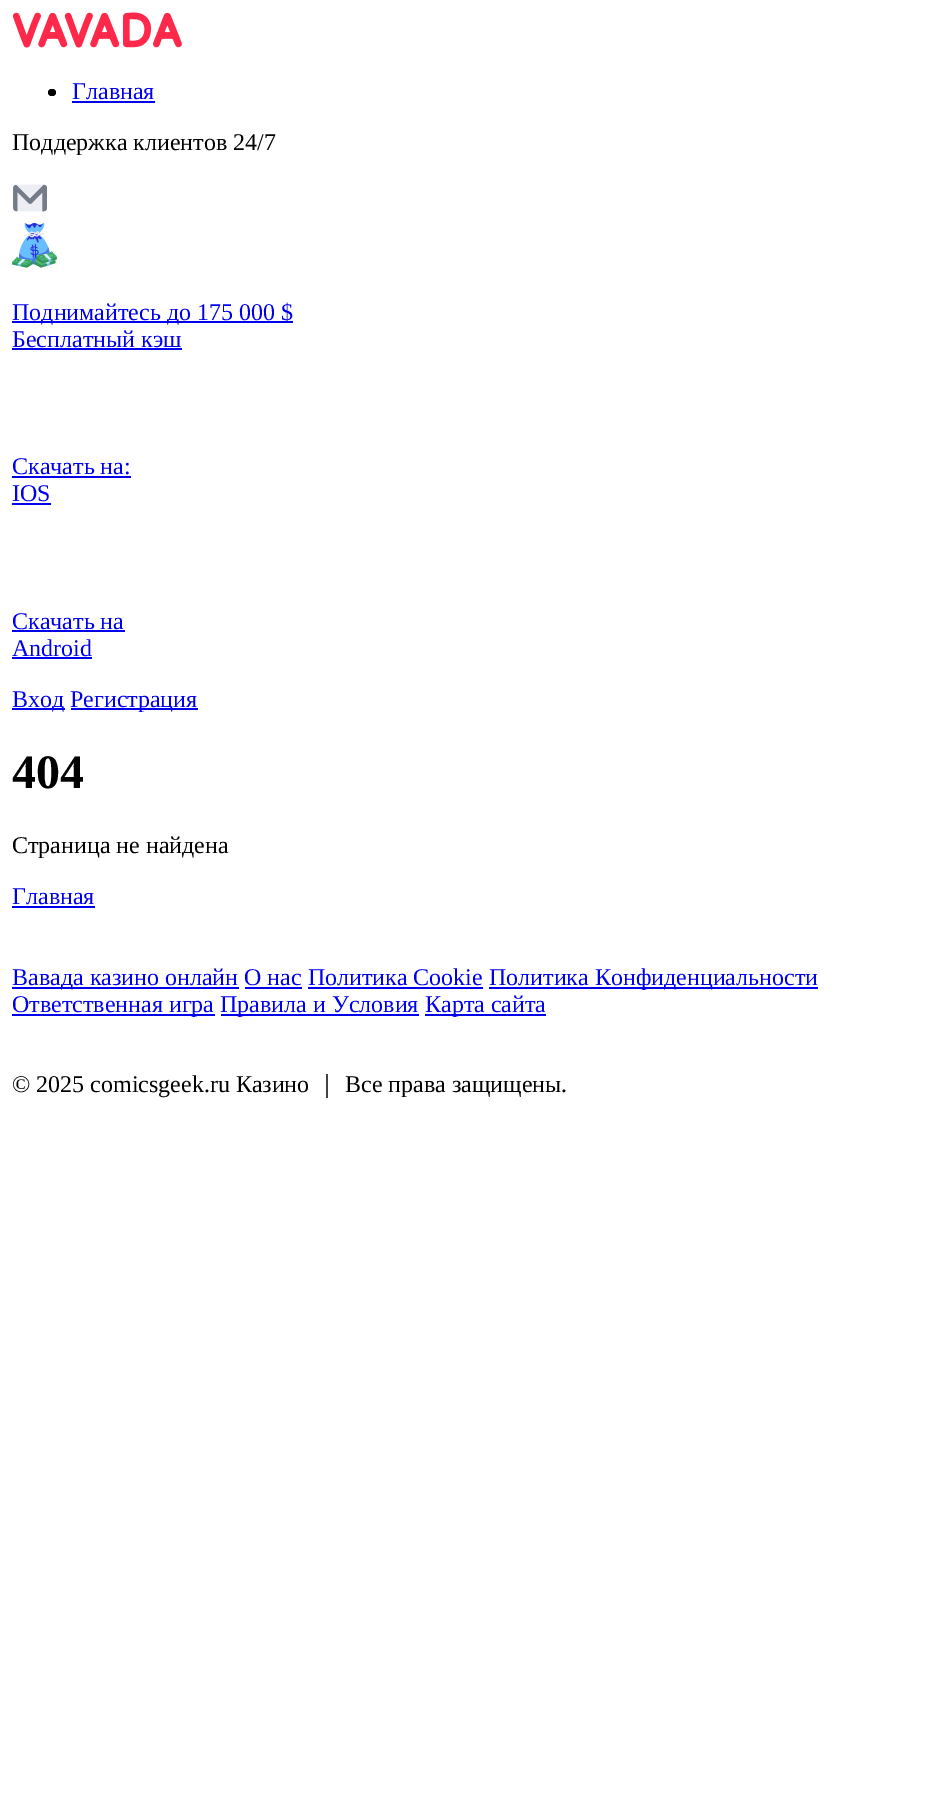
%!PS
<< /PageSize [936 1800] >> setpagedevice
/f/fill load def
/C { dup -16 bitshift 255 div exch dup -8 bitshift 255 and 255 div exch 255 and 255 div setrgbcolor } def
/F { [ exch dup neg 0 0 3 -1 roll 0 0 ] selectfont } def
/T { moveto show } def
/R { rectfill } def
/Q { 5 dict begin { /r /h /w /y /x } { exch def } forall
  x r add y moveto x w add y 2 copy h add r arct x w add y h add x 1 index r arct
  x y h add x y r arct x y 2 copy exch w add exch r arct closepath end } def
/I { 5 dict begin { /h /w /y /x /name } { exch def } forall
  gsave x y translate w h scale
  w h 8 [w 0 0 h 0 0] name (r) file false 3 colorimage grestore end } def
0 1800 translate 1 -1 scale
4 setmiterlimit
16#FFFFFF C
0 0 936 1800 R
(1.rgb) 12 12 170 36 I
16#000000 C
48 89 8 7 3.5 Q f
/LiberationSerif-Regular 24 F
16#0000EE C
(Главная) 72 99 T
72 101 83 2 R
16#000000 C
(Поддержка клиентов 24/7) 12 150 T
(2.rgb) 13 184 34 28 I
(3.rgb) 12 223 45 45 I
16#0000EE C
12 321 281 2 R
(Поднимайтесь до 175 000 $) 12 320 T
(Бесплатный кэш) 12 347 T
12 348 170 2 R
(Скачать на:) 12 474 T
12 476 119 2 R
(IOS) 12 501 T
12 503 39 2 R
(Скачать на) 12 629 T
12 630 113 2 R
(Android) 12 656 T
12 657 80 2 R
12 708 53 2 R
(Вход) 12 707 T
71 708 127 2 R
(Регистрация) 70 707 T
/LiberationSerif-Bold 48 F
16#000000 C
(404) 12 788 T
/LiberationSerif-Regular 24 F
(Страница не найдена) 12 853 T
16#0000EE C
(Главная) 12 904 T
12 906 83 2 R
12 987 227 2 R
(Вавада казино онлайн О нас Политика Cookie) 12 985 T
489 987 329 2 R
(Политика Конфиденциальности) 489 985 T
245 987 57 2 R
308 987 175 2 R
12 1014 203 2 R
(Ответственная игра) 12 1012 T
221 1014 198 2 R
(Правила и Условия) 220 1012 T
425 1014 121 2 R
(Карта сайта) 425 1012 T
16#000000 C
(© 2025 comicsgeek.ru Казино) 12 1092 T
/WenQuanYiZenHei-Medium 24 F
(｜) 315 1092 T
/LiberationSerif-Regular 24 F
(Все права защищены.) 345 1092 T
showpage
